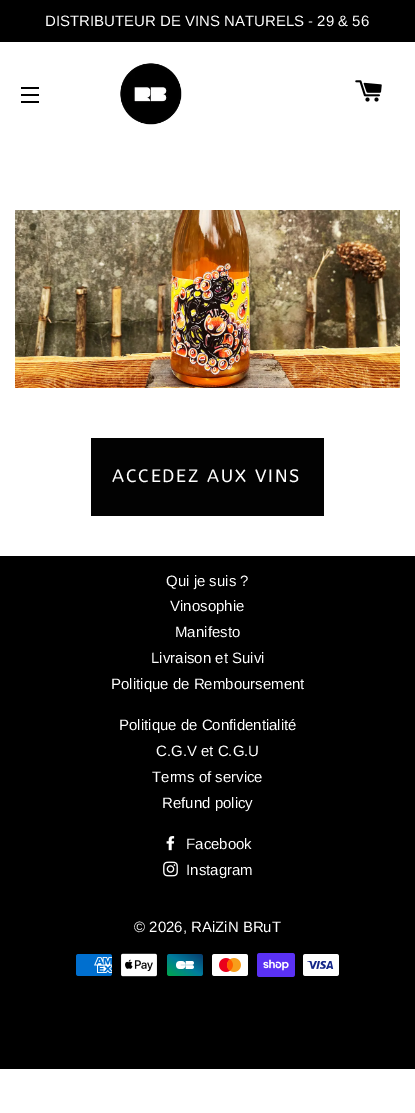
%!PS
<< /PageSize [415 1113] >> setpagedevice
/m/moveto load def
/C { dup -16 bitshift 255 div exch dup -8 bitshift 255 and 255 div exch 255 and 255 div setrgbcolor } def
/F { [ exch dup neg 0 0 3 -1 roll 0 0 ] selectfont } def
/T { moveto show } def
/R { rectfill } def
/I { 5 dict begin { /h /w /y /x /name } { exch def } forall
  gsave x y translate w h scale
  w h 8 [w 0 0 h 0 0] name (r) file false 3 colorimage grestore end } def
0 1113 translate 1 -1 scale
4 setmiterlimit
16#FFFFFF C
0 0 415 1113 R
16#000000 C
0 0 415 42 R
/Arimo-Regular 15 F
16#FFFFFF C
(DISTRIBUTEUR DE VINS NATURELS - 29 & 56) 45 26 T
16#000000 C
21 87 18 2 R
21 94 18 2 R
21 101 18 2 R
(1.rgb) 120 63 62 62 I
(2.rgb) 355 80 27 22 I
(3.rgb) 15 210 385 178 I
16#020202 C
91 438 233 78 R
/ABeeZee-Regular 18 F
16#FFFFFF C
112 482 m 1.75 0 (ACCEDEZ AUX VINS) ashow
16#000000 C
0 556 415 513 R
/Arimo-Regular 15 F
16#FFFFFF C
(Qui je suis ?) 166 586 T
(Vinosophie) 170 611 T
(Manifesto) 175 637 T
(Livraison et Suivi) 151 663 T
(Politique de Remboursement) 111 689 T
(Politique de Confidentialité) 119 730 T
(C.G.V et C.G.U) 156 756 T
(Terms of service) 152 782 T
(Refund policy) 162 808 T
(4.rgb) 166 836 9 15 I
(Facebook) 186 849 T
(5.rgb) 163 861 15 16 I
(Instagram) 186 875 T
(© 2026, RAiZiN BRuT) 134 932 T
(6.rgb) 76 954 36 22 I
(7.rgb) 121 953 36 24 I
(8.rgb) 167 954 36 22 I
(9.rgb) 212 954 36 22 I
(10.rgb) 257 953 38 24 I
(11.rgb) 303 954 36 22 I
showpage
